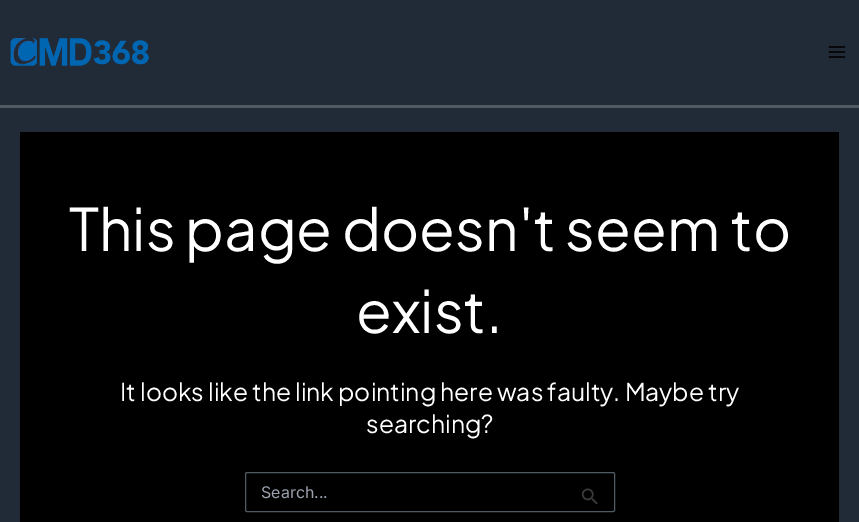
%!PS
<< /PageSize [859 522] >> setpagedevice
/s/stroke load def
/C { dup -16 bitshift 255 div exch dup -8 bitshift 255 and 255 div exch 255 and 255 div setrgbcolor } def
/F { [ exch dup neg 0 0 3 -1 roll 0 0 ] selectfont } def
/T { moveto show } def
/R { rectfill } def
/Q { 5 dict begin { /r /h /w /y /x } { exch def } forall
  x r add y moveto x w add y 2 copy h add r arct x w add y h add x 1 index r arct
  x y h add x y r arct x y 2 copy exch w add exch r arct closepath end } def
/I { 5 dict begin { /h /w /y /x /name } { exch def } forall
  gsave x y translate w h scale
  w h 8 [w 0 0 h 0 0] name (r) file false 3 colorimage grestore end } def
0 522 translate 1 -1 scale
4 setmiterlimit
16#212A37 C
0 0 859 522 R
16#4F5B62 C
0 105 859 3 R
(1.rgb) 10 38 139 28 I
(2.rgb) 828 46 18 12 I
16#000000 C
20 132 819 390 R
/PlusJakartaSans-Regular 58.4 F
16#FFFFFF C
(This page doesn't seem to) 69 251 T
(exist.) 356 333 T
/PlusJakartaSans-Regular 24.6 F
(It looks like the link pointing here was faulty. Maybe try) 120 401 T
(searching?) 366 433 T
16#4F5B62 C
245.5 472.5 369 39 1.5 Q s
/Inter-Regular 16 F
16#9CA3AF C
(Search...) 261 498 T
(3.rgb) 581 488 17 17 I
showpage
